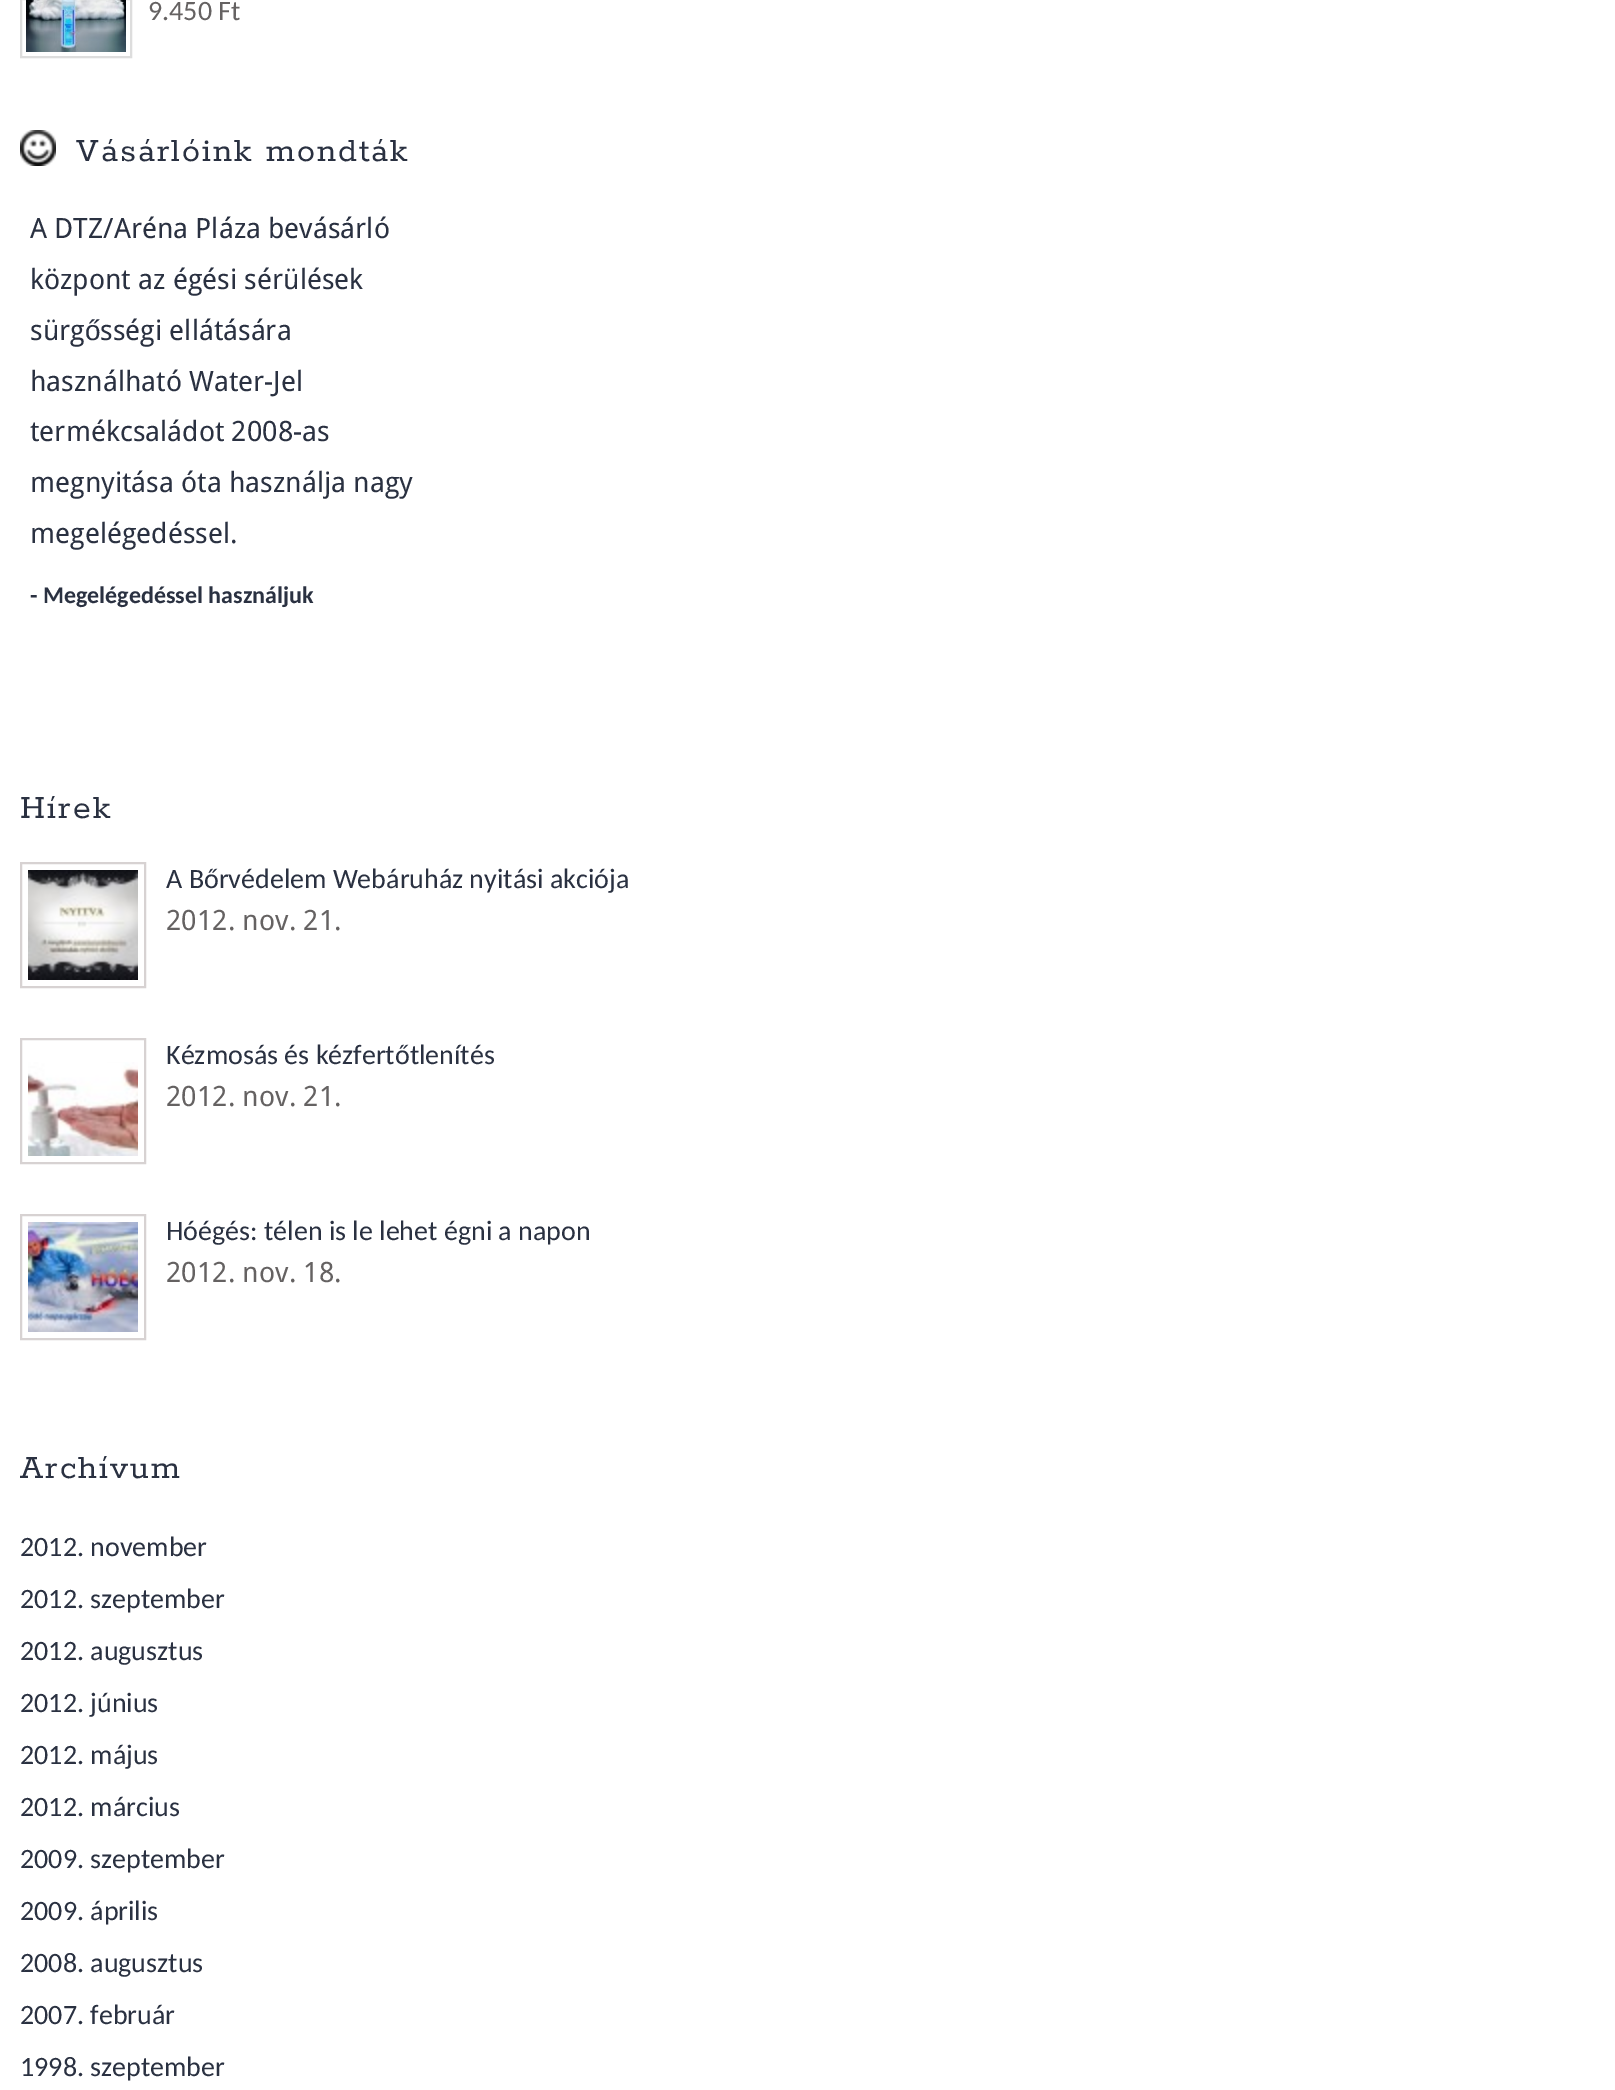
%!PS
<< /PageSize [1615 2090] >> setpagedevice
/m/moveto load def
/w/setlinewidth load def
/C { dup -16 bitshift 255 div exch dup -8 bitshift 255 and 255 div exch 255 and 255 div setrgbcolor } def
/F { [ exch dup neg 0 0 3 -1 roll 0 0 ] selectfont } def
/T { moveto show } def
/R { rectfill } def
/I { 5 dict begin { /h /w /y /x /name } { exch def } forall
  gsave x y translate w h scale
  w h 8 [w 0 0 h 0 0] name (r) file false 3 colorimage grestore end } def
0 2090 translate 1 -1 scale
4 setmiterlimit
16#FFFFFF C
0 0 1615 2090 R
16#DDDDDD C
2 w
21 -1 110 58 rectstroke
(1.rgb) 26 0 100 52 I
/Carlito-Regular 28 F
16#656262 C
(9.450 Ft) 148 20 T
(2.rgb) 20 130 36 36 I
/Rokkitt-SemiBold 36 F
16#2A3141 C
76 161 m 2 0 (Vásárlóink mondták) ashow
/DroidSans-Regular 28 F
(A DTZ/Aréna Pláza bevásárló) 30 238 T
(központ az égési sérülések) 30 289 T
(sürg) 30 340 T
/LiberationSans-Regular 28 F
(ő) 85 340 T
/DroidSans-Regular 28 F
(sségi ellátására) 100 340 T
(használható Water-Jel) 30 391 T
(termékcsaládot 2008-as) 30 441 T
(megnyitása óta használja nagy) 30 492 T
(megelégedéssel.) 30 543 T
/Carlito-Bold 24 F
(- Megelégedéssel használjuk) 30 603 T
/Rokkitt-SemiBold 36 F
20 818 m 2 0 (Hírek) ashow
16#D7D2D2 C
21 863 124 124 rectstroke
(3.rgb) 28 870 110 110 I
/Carlito-Regular 28 F
16#2A3141 C
(A Bőrvédelem Webáruház nyitási akciója) 166 888 T
/DroidSans-Regular 28 F
16#656262 C
(2012. nov. 21.) 166 930 T
16#D7D2D2 C
21 1039 124 124 rectstroke
(4.rgb) 28 1062 110 94 I
/Carlito-Regular 28 F
16#2A3141 C
(Kézmosás és kézfertőtlenítés) 166 1064 T
/DroidSans-Regular 28 F
16#656262 C
(2012. nov. 21.) 166 1106 T
16#D7D2D2 C
21 1215 124 124 rectstroke
(5.rgb) 28 1222 110 110 I
/Carlito-Regular 28 F
16#2A3141 C
(Hóégés: télen is le lehet égni a napon) 166 1240 T
/DroidSans-Regular 28 F
16#656262 C
(2012. nov. 18.) 166 1282 T
/Rokkitt-SemiBold 36 F
16#2A3141 C
20 1478 m 2 0 (Archívum) ashow
/Carlito-Regular 28 F
(2012. november) 20 1556 T
(2012. szeptember) 20 1608 T
(2012. augusztus) 20 1660 T
(2012. június) 20 1712 T
(2012. május) 20 1764 T
(2012. március) 20 1816 T
(2009. szeptember) 20 1868 T
(2009. április) 20 1920 T
(2008. augusztus) 20 1972 T
(2007. február) 20 2024 T
(1998. szeptember) 20 2076 T
showpage
